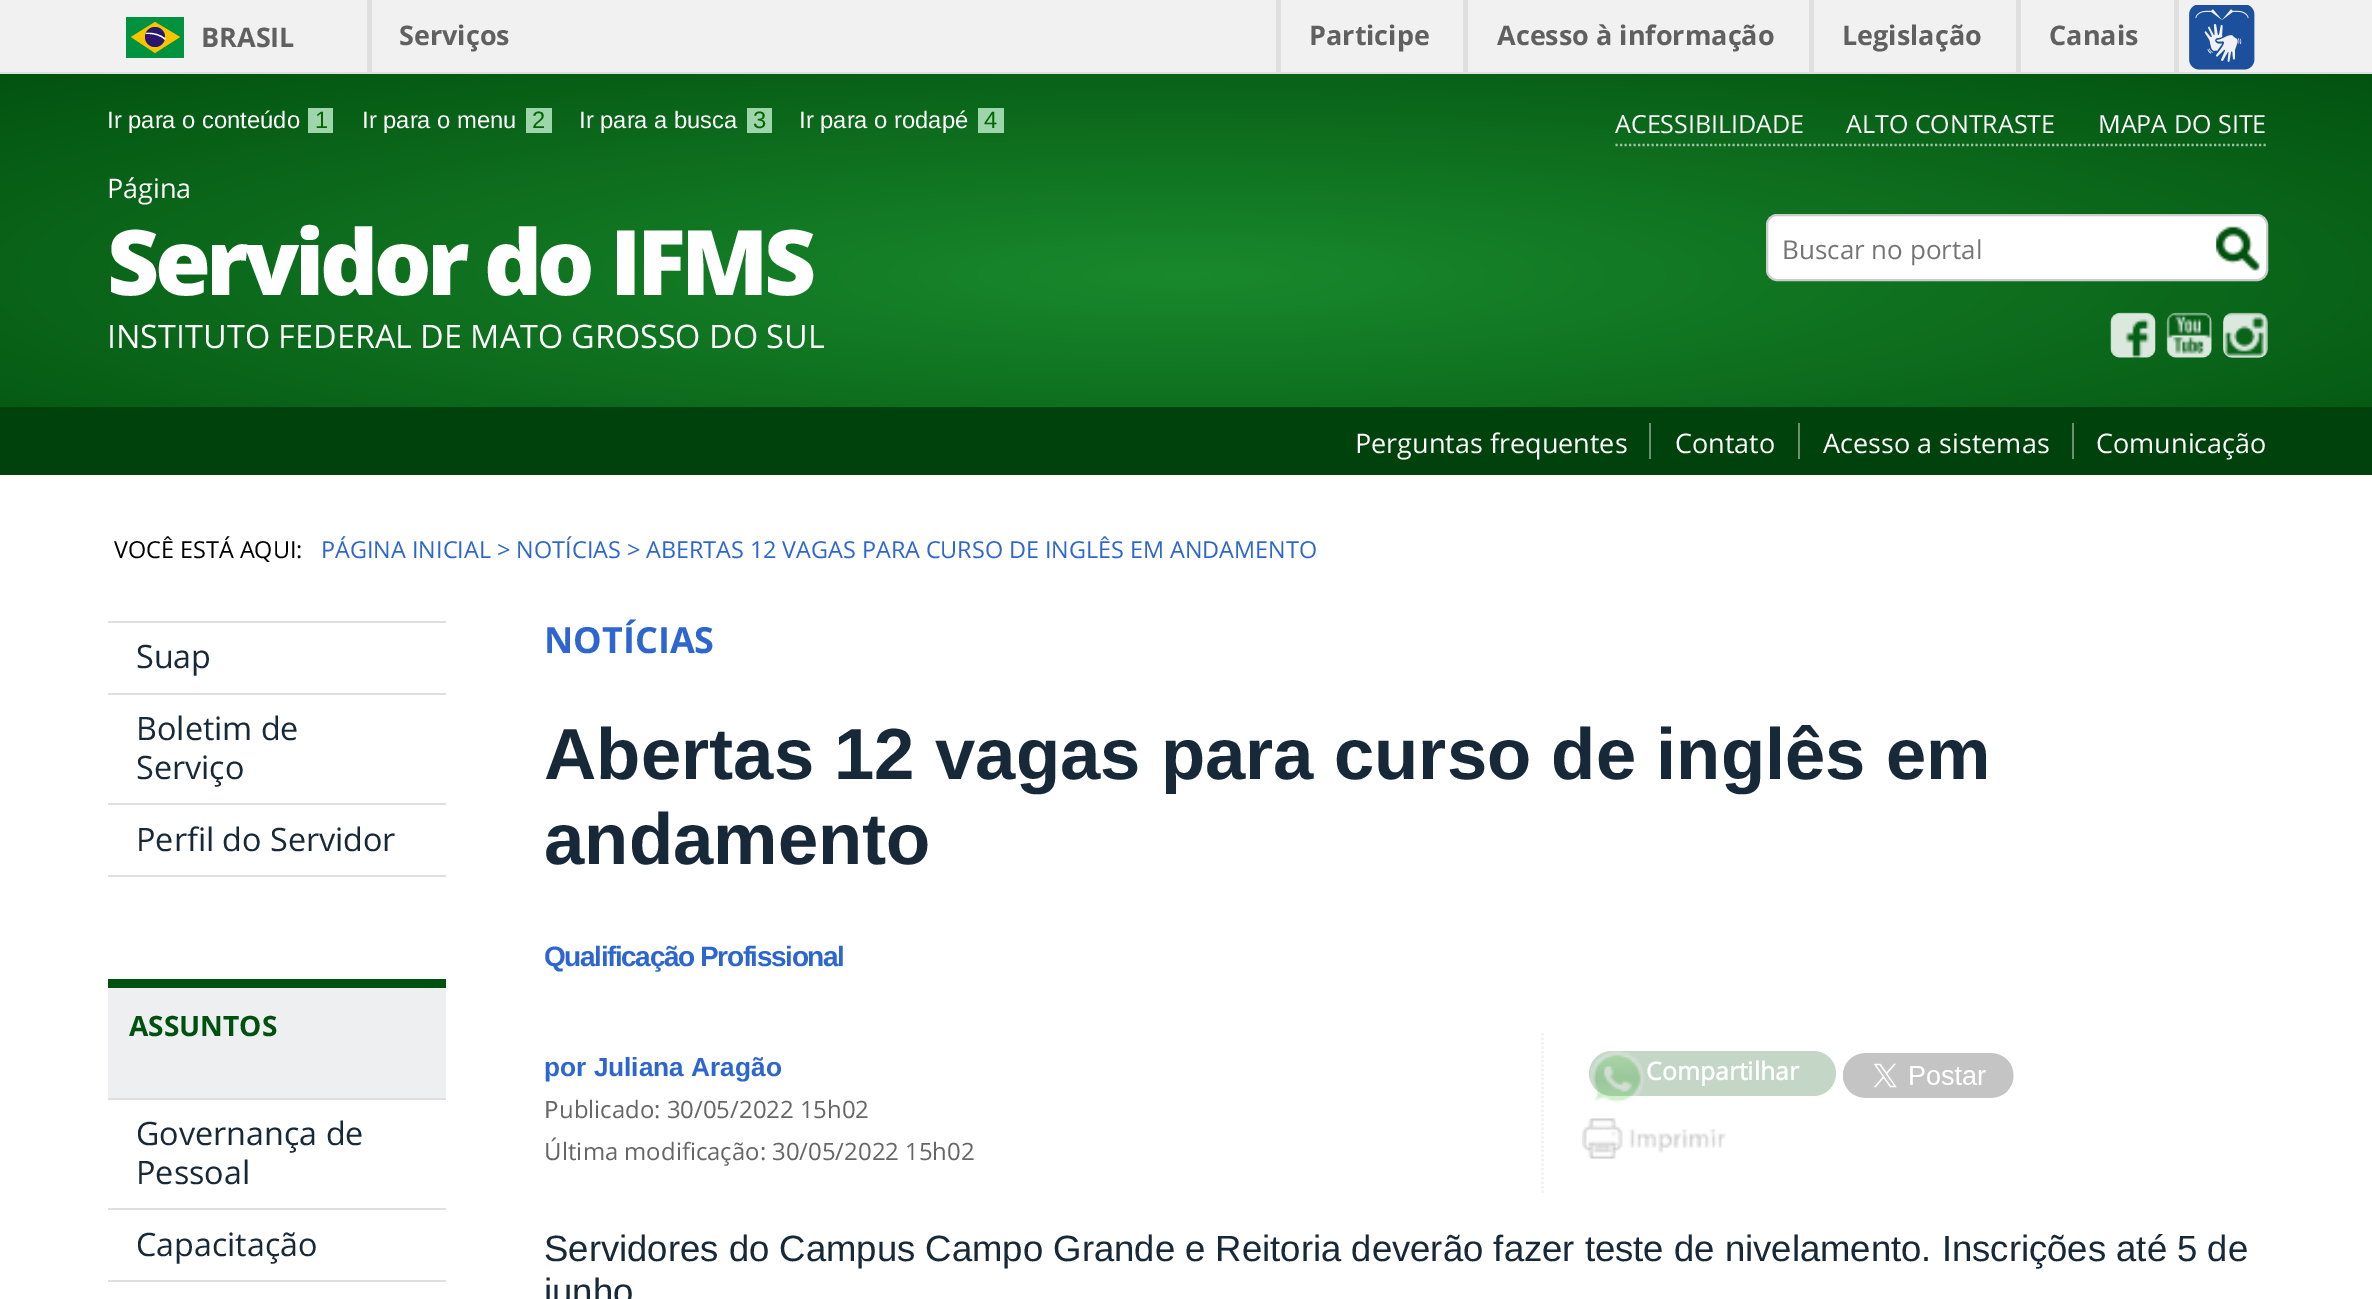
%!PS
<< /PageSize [2372 1299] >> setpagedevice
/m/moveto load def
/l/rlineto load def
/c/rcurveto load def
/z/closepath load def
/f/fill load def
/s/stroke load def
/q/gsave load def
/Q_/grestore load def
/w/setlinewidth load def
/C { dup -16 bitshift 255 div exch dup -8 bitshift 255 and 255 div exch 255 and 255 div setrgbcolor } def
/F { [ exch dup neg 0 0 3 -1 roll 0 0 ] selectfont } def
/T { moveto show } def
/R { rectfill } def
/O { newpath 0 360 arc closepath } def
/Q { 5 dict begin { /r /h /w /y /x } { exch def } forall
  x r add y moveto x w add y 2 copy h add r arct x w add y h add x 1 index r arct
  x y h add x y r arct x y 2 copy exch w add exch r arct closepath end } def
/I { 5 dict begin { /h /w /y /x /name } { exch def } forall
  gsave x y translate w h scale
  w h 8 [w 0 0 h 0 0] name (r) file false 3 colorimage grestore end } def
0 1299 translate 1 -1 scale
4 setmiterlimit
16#FFFFFF C
0 0 2372 1299 R
16#F1F1F1 C
0 0 2372 72 R
16#DFDFDF C
0 72 2372 2 R
367 0 5 72 R
16#00923F C
126 17 58 41 R
16#F8C300 C
155 22 m -24 15 l 24 16 l 25 -16 l z f
16#28166F C
155 37 10 O f
16#FFFFFF C
149 34 m 6 0 12 2 16 6 c .5 -1.5 l -5.5 -4.5 -12.5 -6.5 -19.5 -5.5 c -.5 1 l z f
/OpenSans-Bold 27 F
16#606060 C
(BRASIL) 201 47 T
(Serviços) 399 45 T
16#DFDFDF C
1463 0 5 72 R
1276 0 5 72 R
16#606060 C
(Participe) 1309 45 T
16#DFDFDF C
1809 0 5 72 R
16#606060 C
(Acesso à informação) 1497 45 T
16#DFDFDF C
2016 0 5 72 R
16#606060 C
(Legislação) 1842 45 T
16#DFDFDF C
2174 0 5 72 R
16#606060 C
(Canais) 2049 45 T
(1.rgb) 2189 5 66 65 I
q 0 74 m 2372 0 l 0 333 l -2372 0 l z clip newpath 1187 275 translate 1678 283 scale
<< /ShadingType 3 /ColorSpace /DeviceRGB /Coords [0 0 0 0 0 1] /Extend [true true] /Function << /FunctionType 3 /Domain [0 1] /Functions [<< /FunctionType 2 /Domain [0 1] /C0 [.098 .533 .173] /C1 [.098 .533 .173] /N 1 >> << /FunctionType 2 /Domain [0 1] /C0 [.098 .533 .173] /C1 [.008 .325 .063] /N 1 >>] /Bounds [.01] /Encode [0 1 0 1] >> >> shfill Q_
/LiberationSans-Regular 23.75 F
16#FFFFFF C
(Ir para o conteúdo) 107 128 T
16#9ED5AB C
308 108 25 25 R
16#006600 C
(1) 315 128 T
16#FFFFFF C
(Ir para o menu) 362 128 T
16#9ED5AB C
526 108 26 25 R
16#006600 C
(2) 532 128 T
16#FFFFFF C
(Ir para a busca) 579 128 T
16#9ED5AB C
747 108 25 25 R
16#006600 C
(3) 753 128 T
16#FFFFFF C
(Ir para o rodapé) 799 128 T
16#9ED5AB C
978 108 26 25 R
16#006600 C
(4) 984 128 T
16#9BC2A3 C
2.2 w
[2.25 2.25] 0 setdash
1615.5 145 m 652.5 0 l s
/OpenSans-Regular 25 F
16#FFFFFF C
(ACESSIBILIDADE) 1615 133 T
(ALTO CONTRASTE) 1846 133 T
(MAPA DO SITE) 2098 133 T
/OpenSans-Regular 27 F
(Página) 107 198 T
/OpenSans-ExtraBold 90.5 F
107 295 m -4.5 0 (Servidor do IFMS) ashow
/OpenSans-Regular 32.4 F
(INSTITUTO FEDERAL DE MATO) 107 348 T
(GROSSO DO SUL) 571 348 T
1767 215 500 65 10 Q q f Q_
16#CCCCCC C
2 w
[] 0 setdash
s
/OpenSans-Regular 26 F
16#757575 C
(Buscar no portal) 1782 259 T
(2.rgb) 2216 226 44 45 I
(3.rgb) 2110 312 46 46 I
(4.rgb) 2166 312 46 46 I
(5.rgb) 2223 312 45 46 I
16#00420C C
0 407 2372 68 R
/OpenSans-Regular 27 F
16#FFFFFF C
(Perguntas frequentes) 1355 453 T
16#6C9072 C
1649 423 2 36 R
16#FFFFFF C
(Contato) 1675 453 T
16#6C9072 C
1798 423 2 36 R
16#FFFFFF C
(Acesso a sistemas) 1823 453 T
16#6C9072 C
2072 423 2 36 R
16#FFFFFF C
(Comunicação) 2096 453 T
/OpenSans-Regular 23.4 F
16#000000 C
(VOCÊ ESTÁ AQUI:) 114 558 T
16#2C66CE C
(PÁGINA INICIAL) 321 558 T
(> NOTÍCIAS >) 497 558 T
646 558 m -.25 0 32 (ABERTAS 12 VAGAS PARA CURSO DE INGLÊS EM ANDAMENTO) widthshow
16#DFDFDF C
108 621 338 2 R
/OpenSans-Regular 32.25 F
16#172938 C
(Suap) 136 668 T
16#DFDFDF C
108 693 338 2 R
16#172938 C
(Boletim de) 136 740 T
(Serviço) 136 779 T
16#DFDFDF C
108 803 338 2 R
108 875 338 2 R
16#172938 C
(Perfil do Servidor) 136 851 T
16#EDEFF1 C
108 988 338 110 R
16#00510F C
108 979 338 9 R
/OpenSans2-Bold 28 F
(ASSUNTOS) 129 1036 T
16#DFDFDF C
108 1098 338 2 R
/OpenSans-Regular 32.25 F
16#172938 C
(Governança de) 136 1145 T
(Pessoal) 136 1184 T
16#DFDFDF C
108 1208 338 2 R
16#172938 C
(Capacitação) 136 1256 T
16#DFDFDF C
108 1280 338 2 R
/OpenSans2-Bold 36 F
16#2C66CE C
(NOTÍCIAS) 544 653 T
/LiberationSans-Bold 72.5 F
16#172938 C
(Abertas 12 vagas para curso de inglês em) 544 779 T
(andamento) 544 864 T
/LiberationSans-Bold 28 F
16#2C66CE C
544 966 m -1.4 0 (Qualificação Profissional) ashow
/LiberationSans-Bold 26.25 F
(por Juliana Aragão) 544 1076 T
/NotoSans-Regular 23.9 F
16#666666 C
(P) 544 1118 T
/OpenSans-Regular 23.9 F
(ublicado: 30/05/2022 15h02) 559 1118 T
/NotoSans-Regular 23.9 F
(Ú) 544 1160 T
/OpenSans-Regular 23.9 F
(ltima modificação: 30/05/2022 15h02) 562 1160 T
16#F0F0F1 C
2.2 w
[2.25 2.25] 0 setdash
1542.5 1033 m 0 162 l s
16#C4D7C7 C
1589 1051 247 45 22.5 Q f
(6.rgb) 1590 1051 55 52 I
/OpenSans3-Bold 24.75 F
16#FFFFFF C
(Compartilhar) 1646 1080 T
(7.rgb) 1843 1053 171 45 I
(8.rgb) 1582 1118 144 41 I
/LiberationSans-Regular 36.5 F
16#172938 C
(Servidores do Campus Campo Grande e Reitoria deverão fazer teste de nivelamento. Inscrições até 5 de) 544 1261 T
(junho) 544 1304 T
showpage
